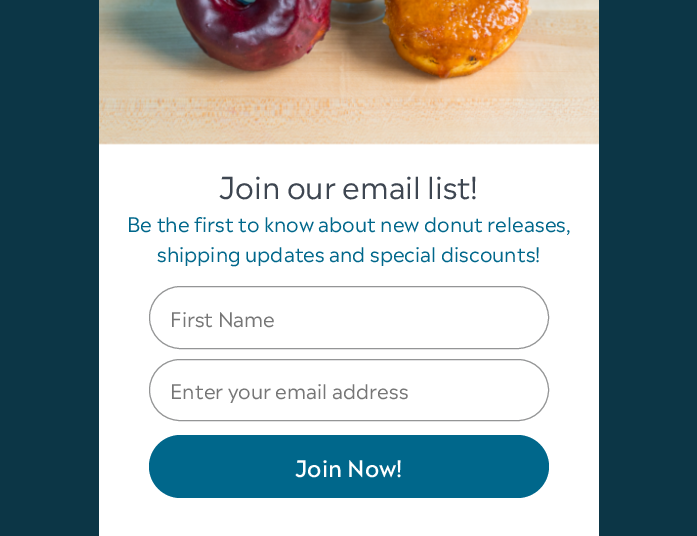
%!PS
<< /PageSize [697 536] >> setpagedevice
/f/fill load def
/s/stroke load def
/C { dup -16 bitshift 255 div exch dup -8 bitshift 255 and 255 div exch 255 and 255 div setrgbcolor } def
/F { [ exch dup neg 0 0 3 -1 roll 0 0 ] selectfont } def
/T { moveto show } def
/R { rectfill } def
/Q { 5 dict begin { /r /h /w /y /x } { exch def } forall
  x r add y moveto x w add y 2 copy h add r arct x w add y h add x 1 index r arct
  x y h add x y r arct x y 2 copy exch w add exch r arct closepath end } def
/I { 5 dict begin { /h /w /y /x /name } { exch def } forall
  gsave x y translate w h scale
  w h 8 [w 0 0 h 0 0] name (r) file false 3 colorimage grestore end } def
0 536 translate 1 -1 scale
4 setmiterlimit
16#0C3646 C
0 0 697 536 R
16#FFFFFF C
99 143 500 393 R
(1.rgb) 99 0 500 145 I
/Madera-Regular 30 F
16#3E4651 C
(Join our email list!) 219 199 T
/Madera-Regular 20 F
16#00678B C
(Be the first to know about new donut releases,) 127 232 T
(shipping updates and special discounts!) 157 262 T
16#949596 C
149.5 286.5 399 62 31 Q s
16#767676 C
(First Name) 170 327 T
16#949596 C
149.5 359.5 399 61 30.5 Q s
16#767676 C
(Enter your email address) 170 399 T
16#00678B C
149 435 400 63 31.5 Q f
/Madera-Medium 22.5 F
16#FFFFFF C
(Join Now!) 295 477 T
showpage
